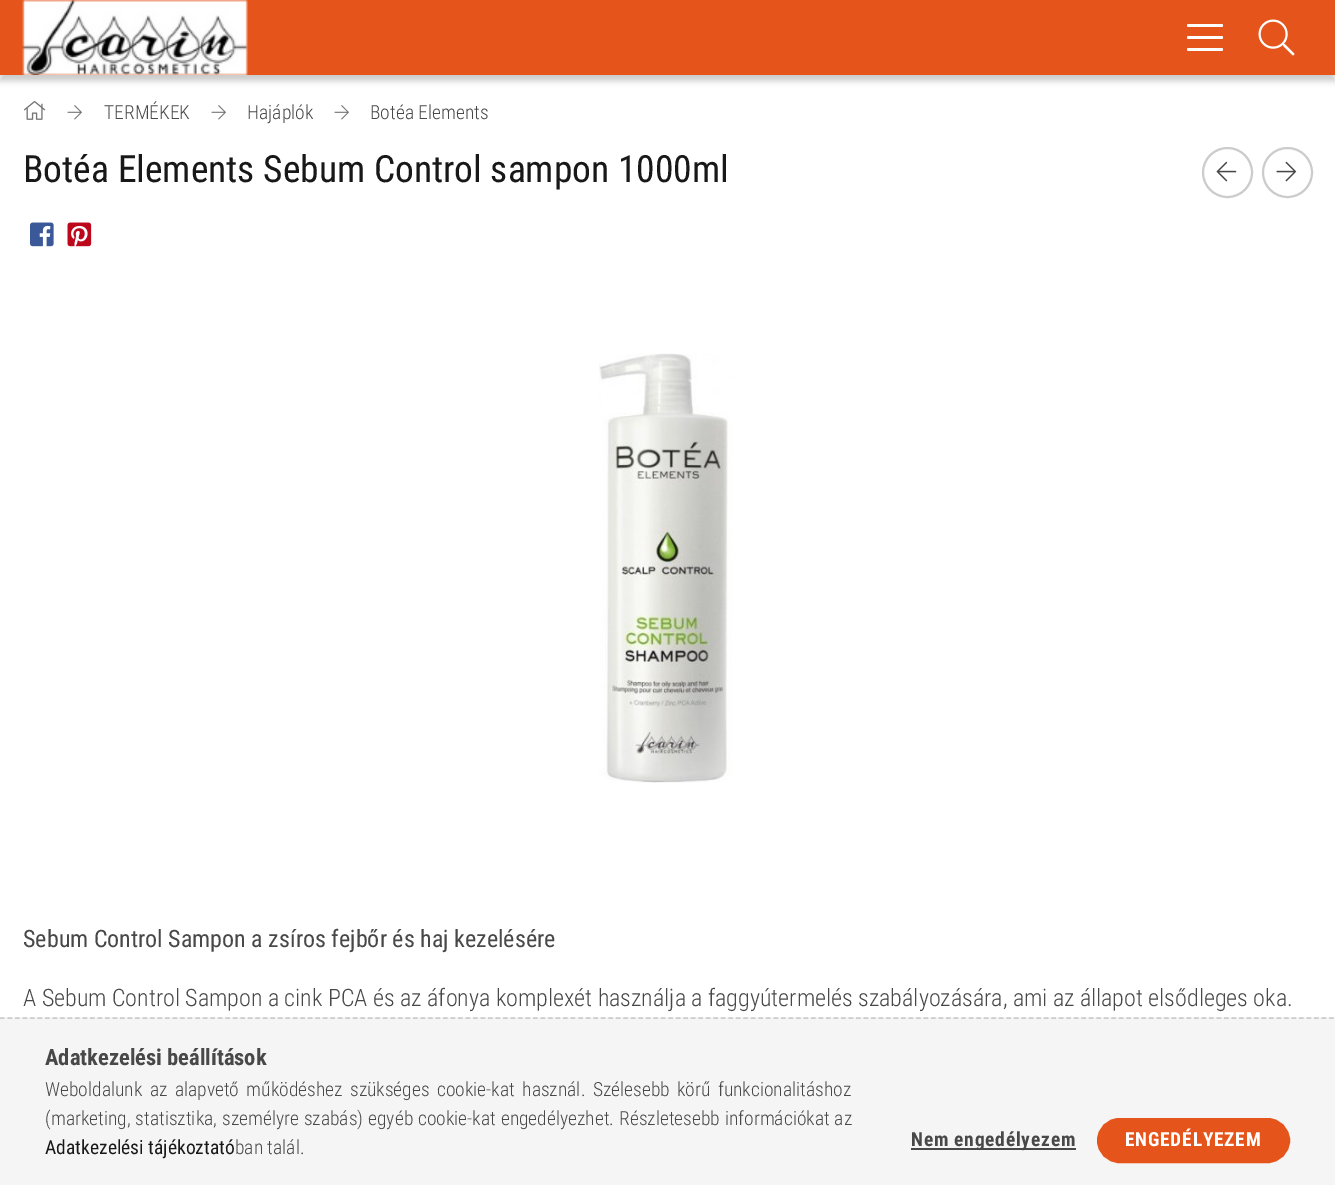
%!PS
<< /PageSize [1335 1185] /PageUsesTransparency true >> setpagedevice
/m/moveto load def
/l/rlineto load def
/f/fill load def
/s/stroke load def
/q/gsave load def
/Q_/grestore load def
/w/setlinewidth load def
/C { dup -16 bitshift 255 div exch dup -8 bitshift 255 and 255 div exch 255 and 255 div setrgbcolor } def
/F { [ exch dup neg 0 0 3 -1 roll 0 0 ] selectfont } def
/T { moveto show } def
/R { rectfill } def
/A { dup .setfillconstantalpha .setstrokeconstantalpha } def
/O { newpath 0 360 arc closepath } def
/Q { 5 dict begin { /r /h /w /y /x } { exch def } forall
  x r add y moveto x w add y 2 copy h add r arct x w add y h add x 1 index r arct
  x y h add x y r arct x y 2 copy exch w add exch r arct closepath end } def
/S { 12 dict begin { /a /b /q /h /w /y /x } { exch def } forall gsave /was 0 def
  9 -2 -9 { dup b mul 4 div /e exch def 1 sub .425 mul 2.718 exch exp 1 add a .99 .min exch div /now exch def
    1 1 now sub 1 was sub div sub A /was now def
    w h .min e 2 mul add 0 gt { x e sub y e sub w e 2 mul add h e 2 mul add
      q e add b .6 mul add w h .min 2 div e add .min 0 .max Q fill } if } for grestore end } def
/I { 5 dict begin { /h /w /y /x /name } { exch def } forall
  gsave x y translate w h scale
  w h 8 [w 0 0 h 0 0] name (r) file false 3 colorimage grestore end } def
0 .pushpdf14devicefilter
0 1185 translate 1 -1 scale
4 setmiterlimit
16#FFFFFF C
0 0 1335 1185 R
16#000000 C
0 6 1335 75 0 3 .2 S
16#E5541A C
0 0 1335 75 R
(1.rgb) 22 0 226 75 I
16#FFFFFF C
1187 24 36 3 1.5 Q f
1187 36 36 3 1.5 Q f
1187 48 36 3 1.5 Q f
(2.rgb) 1258 19 37 37 I
(3.rgb) 23 101 23 19 I
(4.rgb) 67 105 15 15 I
/RobotoCondensed-Light 19.5 F
16#484848 C
(TERMÉKEK) 104 119 T
(4.rgb) 211 105 15 15 I
(Hajáplók) 247 119 T
(4.rgb) 334 105 15 15 I
(Botéa Elements) 370 119 T
/RobotoCondensed-Regular 37.5 F
16#181818 C
(Botéa Elements Sebum Control sampon 1000ml) 23 182 T
16#CCCCCC C
2 w
1227.5 172.5 24.5 O s
(5.rgb) 1216 161 21 21 I
1287.5 172.5 24.5 O s
(6.rgb) 1276 161 21 21 I
(7.rgb) 30 222 24 25 I
(8.rgb) 67 222 25 25 I
(9.rgb) 599 353 134 430 I
/RobotoCondensed-Regular 24 F
16#484848 C
(Sebum Control Sampon a zsíros fejbőr és haj kezelésére) 23 947 T
/RobotoCondensed-Light 24 F
(A Sebum Control Sampon a cink PCA és az áfonya komplexét használja a faggyútermelés szabályozására, ami az állapot elsődleges oka.) 23 1006 T
16#F5F5F5 C
0 1017 1335 168 R
16#CCCCCC C
1.5 w
[4.5 3.01] 0 setdash
0 1018 m 1335 0 l s
/RobotoCondensed-Bold 22.5 F
16#484848 C
(Adatkezelési beállítások) 45 1065 T
/RobotoCondensed-Light 19.5 F
45 1096 m 3 0 32 (Weboldalunk az alapvető működéshez szükséges cookie-kat használ. Szélesebb körű funkcionalitáshoz) widthshow
45 1125 m .5 0 32 (\(marketing, statisztika, személyre szabás\) egyéb cookie-kat engedélyezhet. Részletesebb információkat az) widthshow
/RobotoCondensed-Regular 19.5 F
16#181818 C
(Adatkezelési tájékoztató) 45 1154 T
/RobotoCondensed-Light 19.5 F
16#484848 C
(ban talál.) 235 1154 T
911 1148 165 2 R
/RobotoCondensed-Bold 19.5 F
911 1146 m .75 0 (Nem engedélyezem) ashow
16#E5541A C
1098 1119 191 43 21.5 Q q f Q_
2 w
[] 0 setdash
s
16#FFFFFF C
1125 1146 m .75 0 (ENGEDÉLYEZEM) ashow
.poppdf14devicefilter showpage
